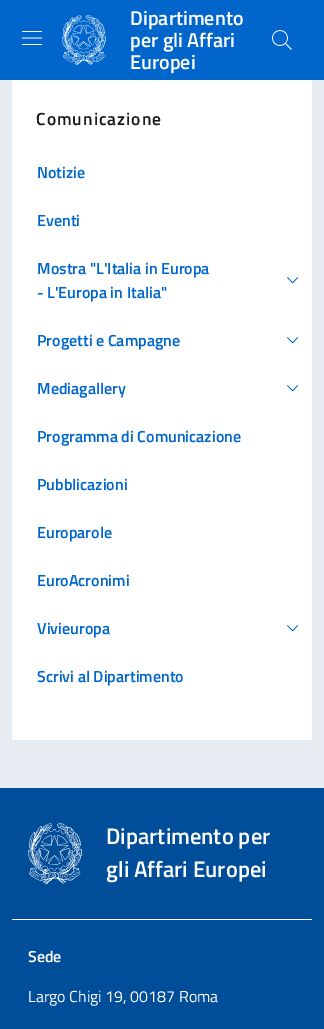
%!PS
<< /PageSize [324 1029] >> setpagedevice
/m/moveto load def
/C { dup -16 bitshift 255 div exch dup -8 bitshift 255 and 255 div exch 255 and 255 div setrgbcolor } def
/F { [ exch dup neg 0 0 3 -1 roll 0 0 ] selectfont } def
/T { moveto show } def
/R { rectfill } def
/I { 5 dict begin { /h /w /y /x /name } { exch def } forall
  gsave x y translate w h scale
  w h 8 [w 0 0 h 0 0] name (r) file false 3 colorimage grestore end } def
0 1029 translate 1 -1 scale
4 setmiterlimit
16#E6ECF2 C
0 0 324 1029 R
16#0066CC C
0 0 324 80 R
(1.rgb) 22 31 20 14 I
(2.rgb) 62 15 44 50 I
/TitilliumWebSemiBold-SemiBold 20 F
16#FFFFFF C
(Dipartimento) 130 25 T
(per gli Affari) 130 47 T
(Europei) 130 69 T
(3.rgb) 272 30 20 20 I
12 80 300 660 R
/TitilliumWebSemiBold-SemiBold 17.5 F
16#1A1A1A C
36 125 m 1 0 (Comunicazione) ashow
/TitilliumWebSemiBold-SemiBold 16 F
16#0066CC C
(Notizie) 37 178 T
(Eventi) 37 226 T
(Mostra "L'Italia in Europa) 37 274 T
(- L'Europa in Italia") 37 298 T
(4.rgb) 287 277 12 7 I
(Progetti e Campagne) 37 346 T
(4.rgb) 287 337 12 7 I
(Mediagallery) 37 394 T
(4.rgb) 287 385 12 7 I
(Programma di Comunicazione) 37 442 T
(Pubblicazioni) 37 490 T
(Europarole) 37 538 T
(EuroAcronimi) 37 586 T
(Vivieuropa) 37 634 T
(4.rgb) 287 625 12 7 I
(Scrivi al Dipartimento) 37 682 T
16#004D99 C
0 788 324 241 R
(5.rgb) 28 823 54 61 I
/TitilliumWebSemiBold-SemiBold 22.5 F
16#FFFFFF C
(Dipartimento per) 106 844 T
(gli Affari Europei) 106 877 T
12 919 300 1 R
/TitilliumWebSemiBold-SemiBold 16 F
(Sede) 28 962 T
/TitilliumWeb-Regular 16 F
(Largo Chigi 19, 00187 Roma) 28 1002 T
showpage
